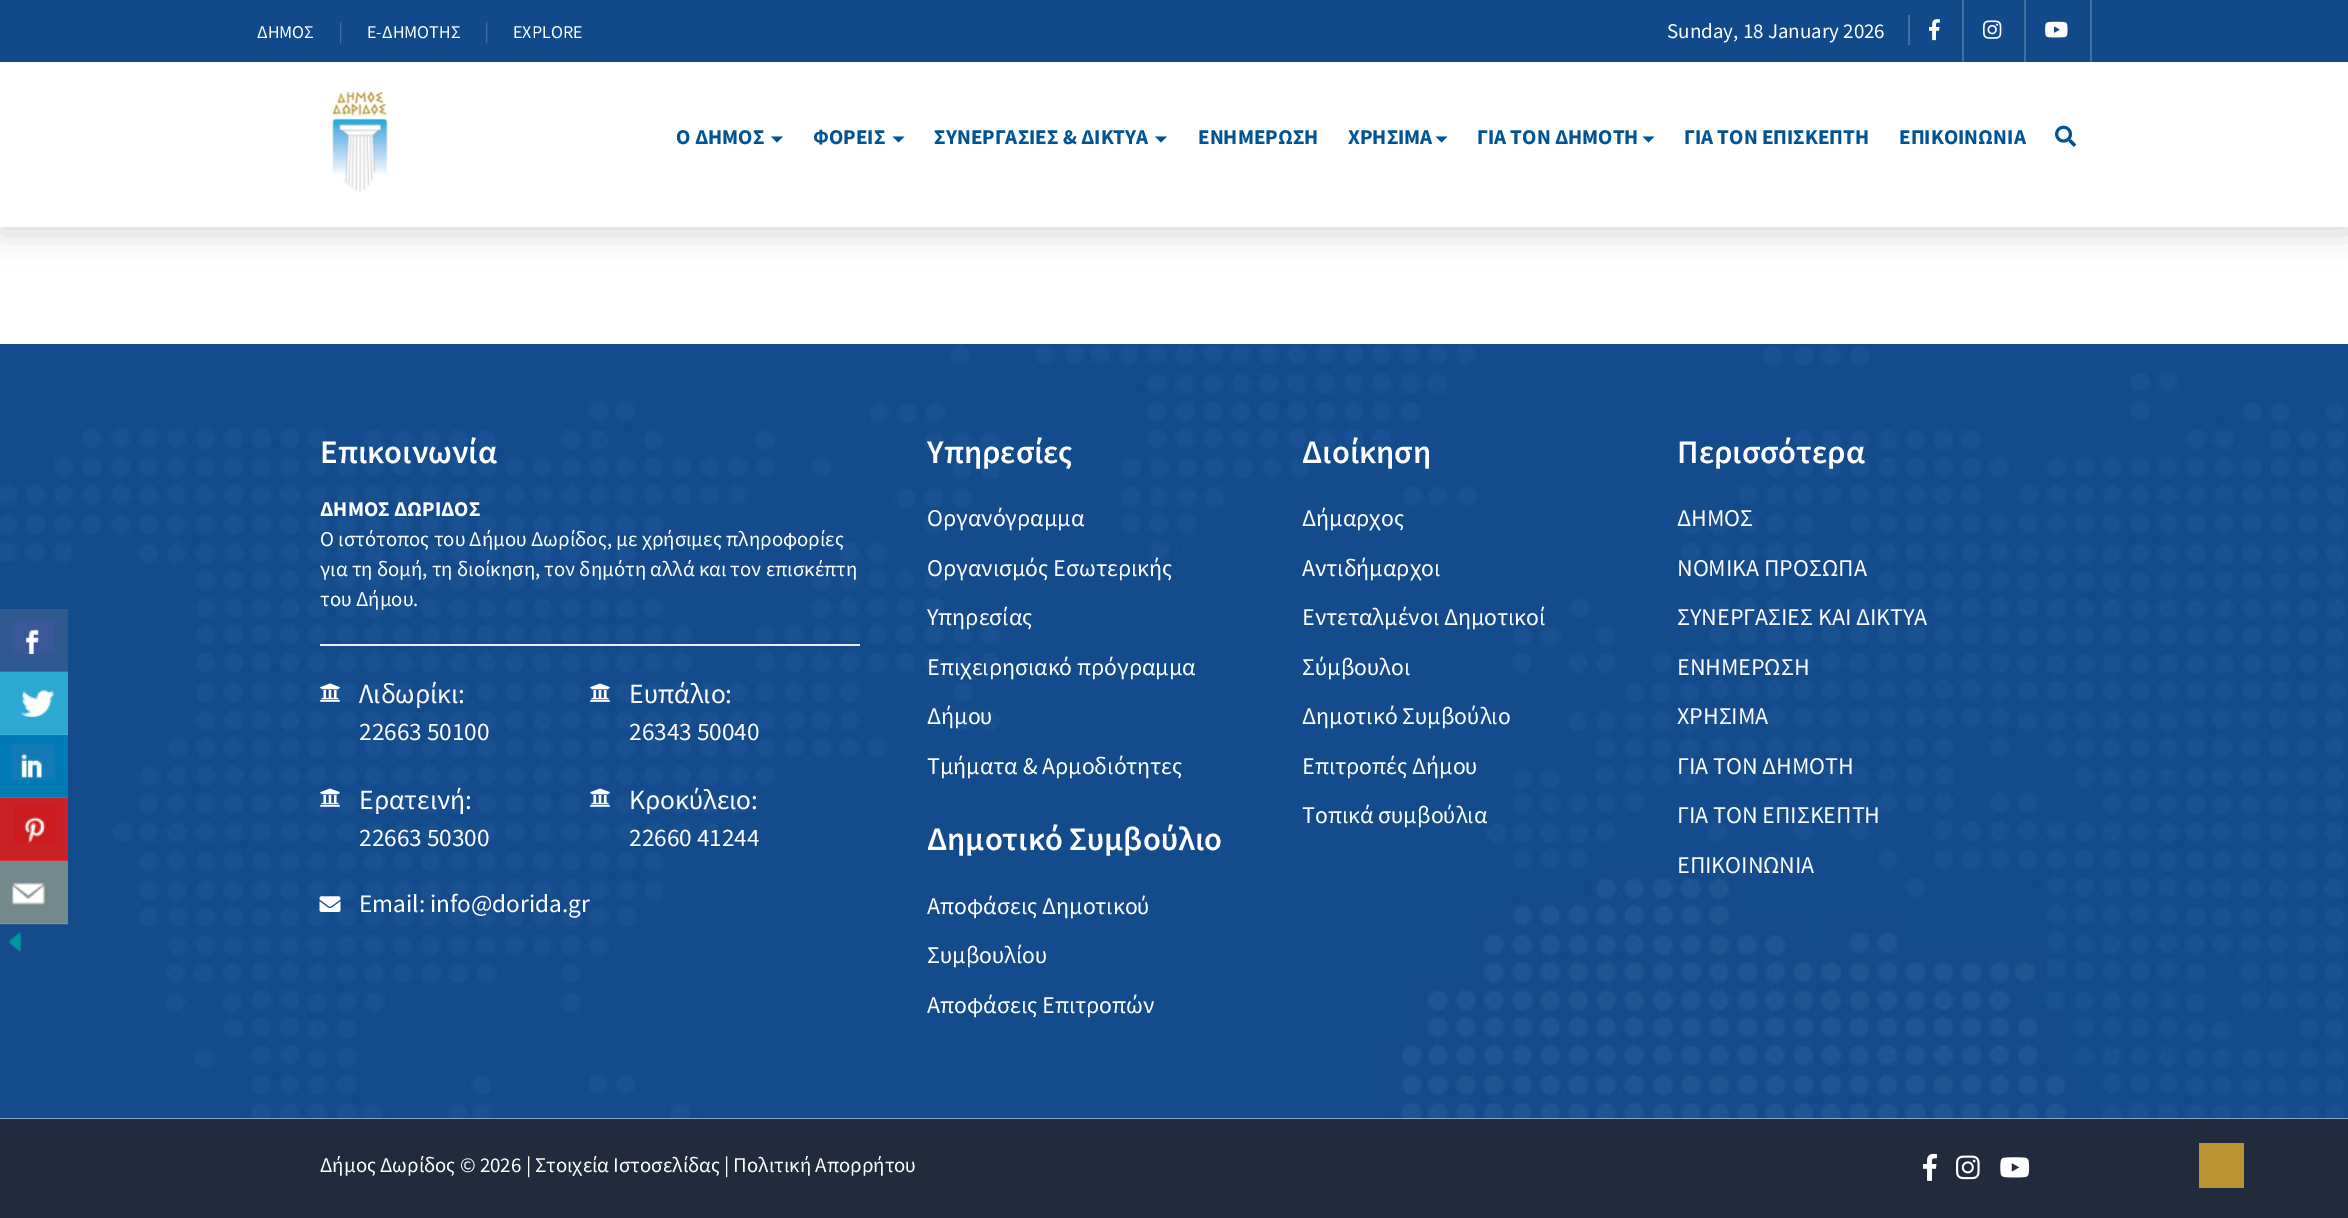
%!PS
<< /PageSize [2348 1218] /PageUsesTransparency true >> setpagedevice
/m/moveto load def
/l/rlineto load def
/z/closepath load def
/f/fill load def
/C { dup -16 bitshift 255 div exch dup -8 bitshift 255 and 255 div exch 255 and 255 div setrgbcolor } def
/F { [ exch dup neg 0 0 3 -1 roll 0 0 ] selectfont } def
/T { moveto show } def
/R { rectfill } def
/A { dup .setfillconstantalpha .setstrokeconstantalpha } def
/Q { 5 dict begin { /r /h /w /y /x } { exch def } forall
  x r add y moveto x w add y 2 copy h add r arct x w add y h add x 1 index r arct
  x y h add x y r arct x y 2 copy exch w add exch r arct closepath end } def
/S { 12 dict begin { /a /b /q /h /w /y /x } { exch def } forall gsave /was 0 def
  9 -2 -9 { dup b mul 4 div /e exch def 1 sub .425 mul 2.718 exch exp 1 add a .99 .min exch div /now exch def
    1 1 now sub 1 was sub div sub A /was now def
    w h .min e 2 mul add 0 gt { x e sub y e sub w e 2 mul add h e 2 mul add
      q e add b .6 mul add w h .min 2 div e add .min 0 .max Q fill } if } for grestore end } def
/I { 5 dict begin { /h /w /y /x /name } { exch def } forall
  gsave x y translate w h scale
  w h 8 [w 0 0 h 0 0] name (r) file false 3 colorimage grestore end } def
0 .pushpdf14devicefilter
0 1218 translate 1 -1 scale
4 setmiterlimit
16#FFFFFF C
0 0 2348 1218 R
(12.rgb) 0 344 2348 775 I
16#305891 C
0 609 68 63 R
0.1 A
16#FFFFFF C
0 671 68 1 R
1 A
(1.rgb) 13 620 42 34 I
16#2CA8D2 C
0 672 68 63 R
0.1 A
16#FFFFFF C
0 734 68 1 R
1 A
(2.rgb) 21 690 34 27 I
16#007BB6 C
0 735 68 63 R
0.1 A
16#FFFFFF C
0 797 68 1 R
1 A
(3.rgb) 12 744 43 36 I
16#CA2027 C
0 798 68 63 R
0.1 A
16#FFFFFF C
0 860 68 1 R
1 A
(4.rgb) 14 806 43 37 I
16#738A8D C
0 861 68 63 R
0.1 A
16#FFFFFF C
0 923 68 2 R
1 A
(5.rgb) 12 882 33 23 I
(6.rgb) 8 932 14 20 I
16#000000 C
0 8 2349 226 0 15 .15 S
16#FFFFFF C
0 62 2348 165 R
16#12498A C
0 0 2348 62 R
/SourceSansPro-Regular 18 F
16#FFFFFF C
(ΔΗΜΟΣ) 257 38 T
/SourceSansPro-Regular 21 F
16#416DA1 C
(|) 338 38 T
/SourceSansPro-Regular 18 F
16#FFFFFF C
(E-ΔΗΜΟΤΗΣ) 367 38 T
/SourceSansPro-Regular 21 F
16#416DA1 C
(|) 484 38 T
/SourceSansPro-Regular 18 F
16#FFFFFF C
(EXPLORE) 513 38 T
16#416DA1 C
1908 15 2 30 R
/SourceSansPro-Regular 21 F
16#FFFFFF C
(Sunday, 18 January 2026) 1667 38 T
16#416DA1 C
1962 0 2 62 R
(7.rgb) 1929 19 11 22 I
2024 0 2 62 R
(8.rgb) 1983 20 19 19 I
2090 0 2 62 R
(9.rgb) 2045 21 23 17 I
(10.rgb) 331 90 57 102 I
/SourceSansPro-Bold 21 F
16#005394 C
(Ο ΔΗΜΟΣ) 676 144 T
771 136.5 m 12 0 l -6 6 l z f
(ΦΟΡΕΙΣ) 813 144 T
892.5 136.5 m 12 0 l -6 6 l z f
(ΣΥΝΕΡΓΑΣΙΕΣ & ΔΙΚΤΥΑ) 934 144 T
1155 136.5 m 12 0 l -6 6 l z f
(ΕΝΗΜΕΡΩΣΗ) 1198 144 T
(ΧΡΗΣΙΜΑ) 1348 144 T
1435.5 136.5 m 12 0 l -6 6 l z f
(ΓΙΑ ΤΟΝ ΔΗΜΟΤΗ) 1477 144 T
1642.5 136.5 m 12 0 l -6 6 l z f
(ΓΙΑ ΤΟΝ ΕΠΙΣΚΕΠΤΗ) 1684 144 T
(ΕΠΙΚΟΙΝΩΝΙΑ) 1899 144 T
(11.rgb) 2055 125 21 22 I
/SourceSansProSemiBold-SemiBold 33 F
16#FFFFFF C
(Επικοινωνία) 320 463 T
/SourceSansPro-Bold 21 F
(ΔΗΜΟΣ ΔΩΡΙΔΟΣ) 320 516 T
/SourceSansPro-Regular 21 F
(Ο ιστότοπος του Δήμου Δωρίδος, με χρήσιμες πληροφορίες) 320 546 T
(για τη δομή, τη διοίκηση, τον δημότη αλλά και τον επισκέπτη) 320 576 T
(του Δήμου.) 320 606 T
16#EEEEEE C
320 644 540 2 R
(13.rgb) 320 683 20 19 I
/SourceSansPro-Regular 27.75 F
16#FFFFFF C
(Λιδωρίκι:) 359 703 T
/SourceSansPro-Regular 25.25 F
(22663 50100) 359 740 T
(14.rgb) 590 683 20 19 I
/SourceSansPro-Regular 27.75 F
(Ευπάλιο:) 629 703 T
/SourceSansPro-Regular 25.25 F
(26343 50040) 629 740 T
(15.rgb) 320 788 20 19 I
/SourceSansPro-Regular 27.75 F
(Ερατεινή:) 359 809 T
/SourceSansPro-Regular 25.25 F
(22663 50300) 359 846 T
(16.rgb) 590 788 20 19 I
/SourceSansPro-Regular 27.75 F
(Κροκύλειο:) 629 809 T
/SourceSansPro-Regular 25.25 F
(22660 41244) 629 846 T
(17.rgb) 319 896 22 16 I
(Email: info@dorida.gr) 359 912 T
/SourceSansProSemiBold-SemiBold 33 F
(Υπηρεσίες) 927 463 T
/SourceSansPro-Regular 24 F
(Οργανόγραμμα) 927 526 T
(Οργανισμός Εσωτερικής) 927 576 T
(Υπηρεσίας) 927 625 T
(Επιχειρησιακό πρόγραμμα) 927 675 T
(Δήμου) 927 724 T
(Τμήματα & Αρμοδιότητες) 927 774 T
/SourceSansProSemiBold-SemiBold 33 F
(Δημοτικό Συμβούλιο) 927 850 T
/SourceSansPro-Regular 24 F
(Αποφάσεις Δημοτικού) 927 914 T
(Συμβουλίου) 927 963 T
(Αποφάσεις Επιτροπών) 927 1013 T
/SourceSansProSemiBold-SemiBold 33 F
(Διοίκηση) 1302 463 T
/SourceSansPro-Regular 24 F
(Δήμαρχος) 1302 526 T
(Αντιδήμαρχοι) 1302 576 T
(Εντεταλμένοι Δημοτικοί) 1302 625 T
(Σύμβουλοι) 1302 675 T
(Δημοτικό Συμβούλιο) 1302 724 T
(Επιτροπές Δήμου) 1302 774 T
(Τοπικά συμβούλια) 1302 823 T
/SourceSansProSemiBold-SemiBold 33 F
(Περισσότερα) 1677 463 T
/SourceSansPro-Regular 24 F
(ΔΗΜΟΣ) 1677 526 T
(ΝΟΜΙΚΑ ΠΡΟΣΩΠΑ) 1677 576 T
(ΣΥΝΕΡΓΑΣΙΕΣ ΚΑΙ ΔΙΚΤΥΑ) 1677 625 T
(ΕΝΗΜΕΡΩΣΗ) 1677 675 T
(ΧΡΗΣΙΜΑ) 1677 724 T
(ΓΙΑ ΤΟΝ ΔΗΜΟΤΗ) 1677 774 T
(ΓΙΑ ΤΟΝ ΕΠΙΣΚΕΠΤΗ) 1677 823 T
(ΕΠΙΚΟΙΝΩΝΙΑ) 1677 873 T
16#212B3D C
0 1119 2348 99 R
/SourceSansPro-Regular 21 F
16#FFFFFF C
(Δήμος Δωρίδος © 2026 | Στοιχεία Ιστοσελίδας | Πολιτική Απορρήτου) 320 1172 T
(18.rgb) 1923 1153 14 28 I
(19.rgb) 1956 1155 24 25 I
(20.rgb) 2000 1157 30 21 I
16#BB9333 C
2199 1143 45 45 R
.poppdf14devicefilter showpage
